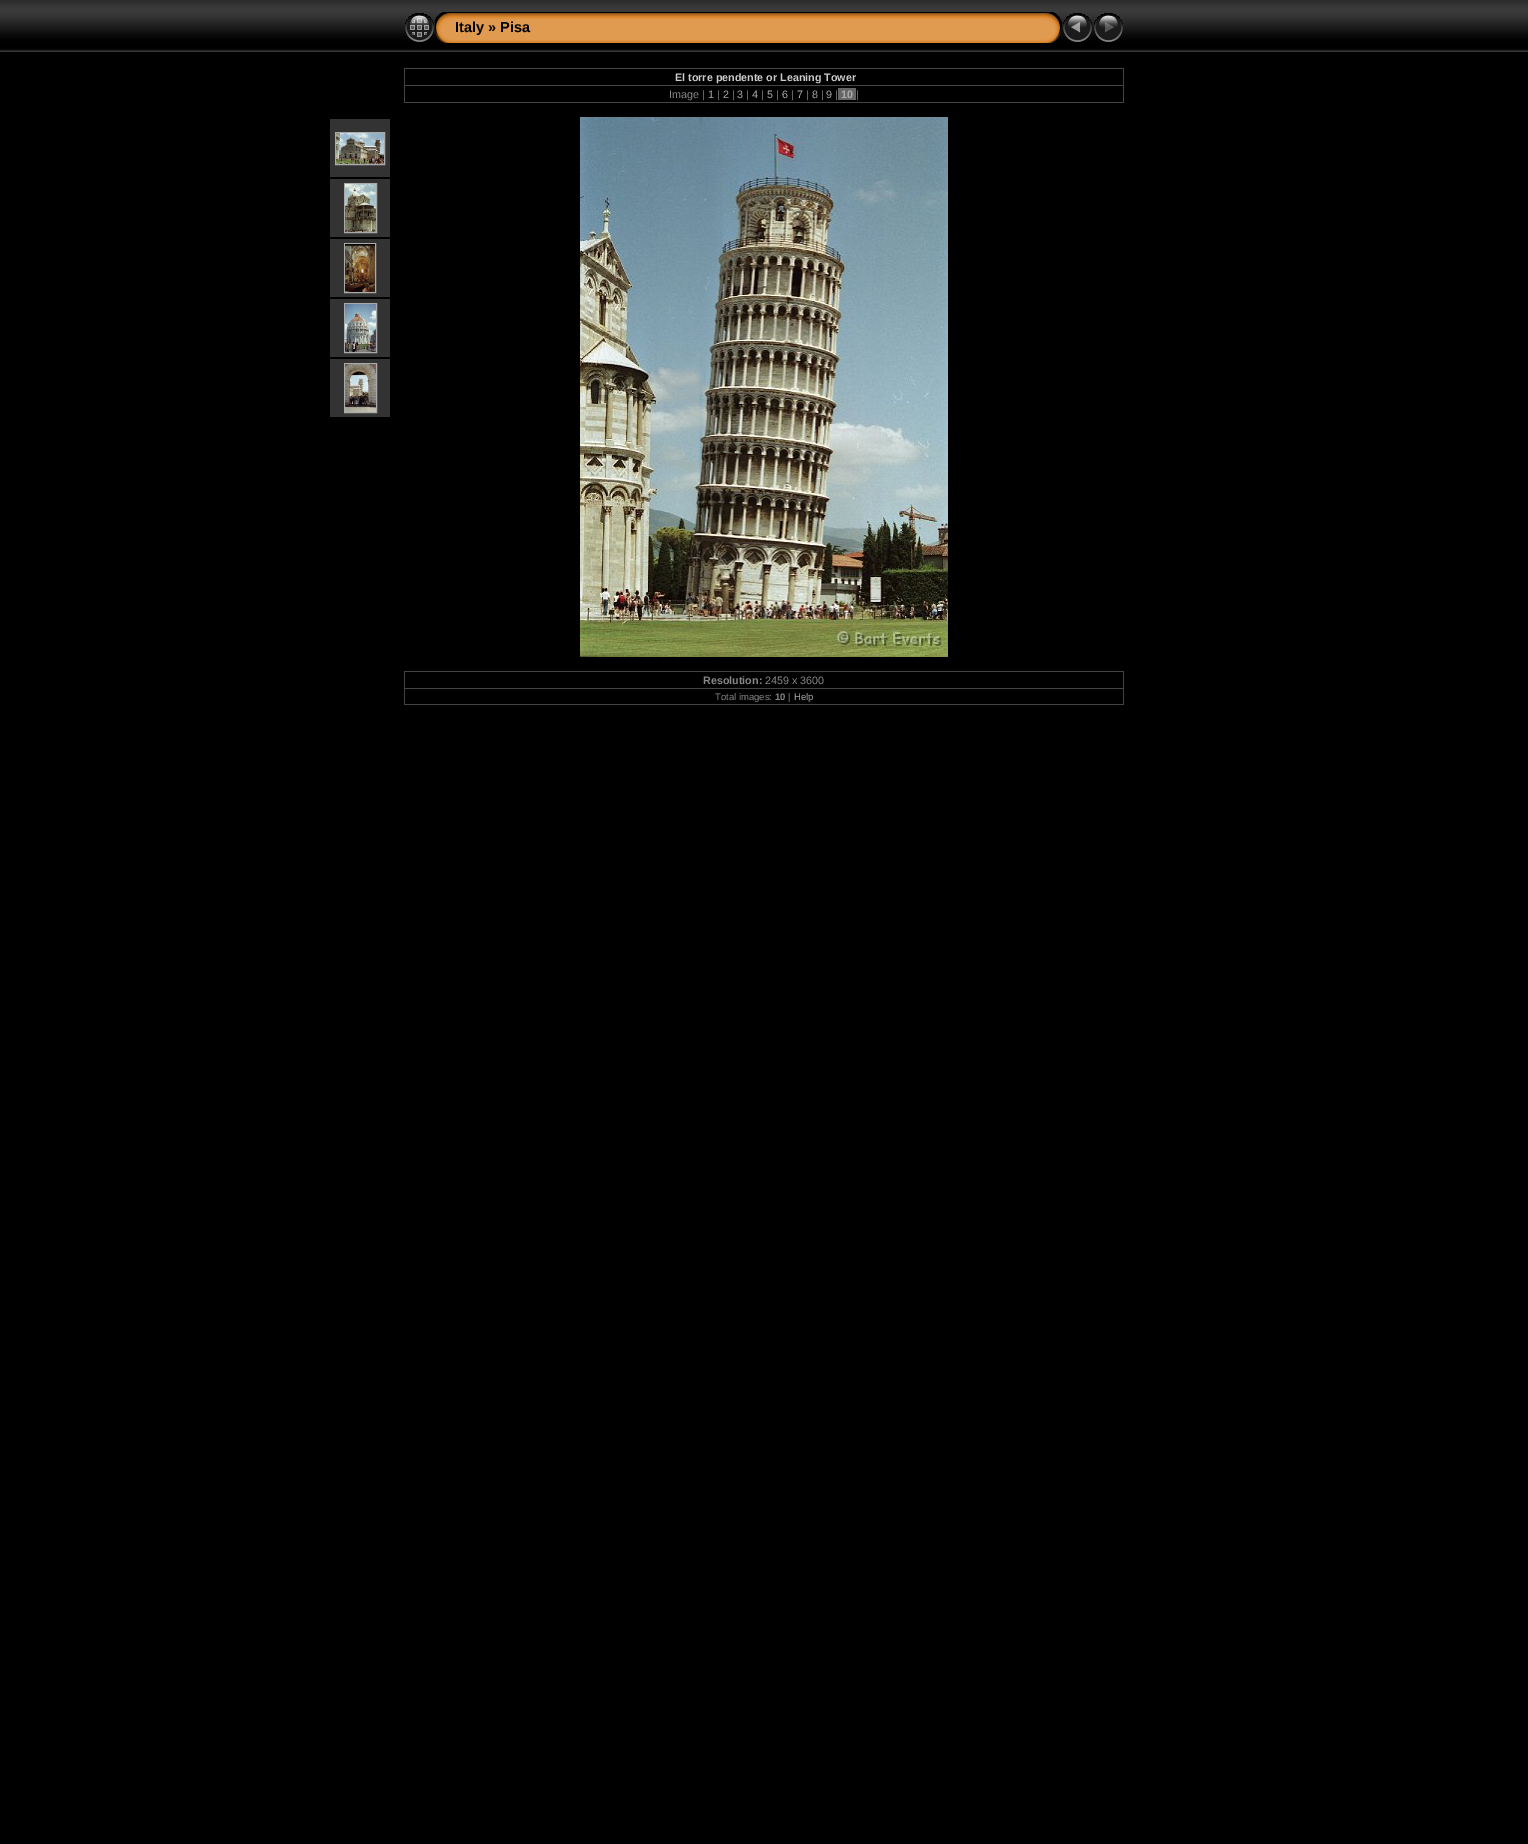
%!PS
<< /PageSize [1528 1844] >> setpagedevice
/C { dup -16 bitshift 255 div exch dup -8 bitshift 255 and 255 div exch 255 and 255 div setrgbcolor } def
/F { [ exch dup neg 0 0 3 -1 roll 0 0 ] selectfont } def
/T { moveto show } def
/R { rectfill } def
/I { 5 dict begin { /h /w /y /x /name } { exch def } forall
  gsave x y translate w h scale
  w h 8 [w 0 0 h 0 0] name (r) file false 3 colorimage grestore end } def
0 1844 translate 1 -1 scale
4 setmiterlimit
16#000000 C
0 0 1528 1844 R
(1.rgb) 0 0 1528 52 I
(2.rgb) 405 13 29 29 I
(3.rgb) 435 12 20 31 I
(4.rgb) 455 12 587 31 I
/LiberationSans-Bold 14.5 F
(Italy » Pisa) 455 32 T
(5.rgb) 1042 12 20 31 I
(6.rgb) 1063 13 29 29 I
(7.rgb) 1094 13 29 29 I
16#444444 C
404 68 720 1 R
1123 68 1 35 R
404 102 720 1 R
404 68 1 35 R
/LiberationSans-Bold 10.75 F
16#CCCCCC C
(El torre pendente or Leaning Tower) 675 81 T
16#444444 C
404 85 720 1 R
/LiberationSans-Regular 10.75 F
16#888888 C
(Image |) 669 98 T
16#AAAAAA C
(1) 708 98 T
16#888888 C
(|) 717 98 T
16#AAAAAA C
(2) 723 98 T
16#888888 C
(|) 732 98 T
16#AAAAAA C
(3) 737 98 T
16#888888 C
(|) 746 98 T
16#AAAAAA C
(4) 752 98 T
16#888888 C
(|) 761 98 T
16#AAAAAA C
(5) 767 98 T
16#888888 C
(|) 776 98 T
16#AAAAAA C
(6) 782 98 T
16#888888 C
(|) 791 98 T
16#AAAAAA C
(7) 797 98 T
16#888888 C
(|) 806 98 T
16#AAAAAA C
(8) 812 98 T
16#888888 C
(|) 821 98 T
16#AAAAAA C
(9) 826 98 T
16#888888 C
(|) 835 98 T
16#666666 C
838 88 18 12 R
/LiberationSans-Bold 10.75 F
16#AAAAAA C
(10) 841 98 T
/LiberationSans-Regular 10.75 F
16#888888 C
(|) 856 98 T
16#333333 C
330 119 60 58 R
16#AAAAAA C
335.5 132.5 49 32 rectstroke
(8.rgb) 336 133 48 31 I
16#333333 C
330 179 60 58 R
16#AAAAAA C
344.5 183.5 32 49 rectstroke
(9.rgb) 345 184 31 48 I
16#333333 C
330 239 60 58 R
16#AAAAAA C
344.5 243.5 31 49 rectstroke
(10.rgb) 345 244 30 48 I
16#333333 C
330 299 60 58 R
16#AAAAAA C
344.5 303.5 32 49 rectstroke
(11.rgb) 345 304 31 48 I
16#333333 C
330 359 60 58 R
16#AAAAAA C
344.5 363.5 32 49 rectstroke
(12.rgb) 345 364 31 48 I
(13.rgb) 580 117 368 540 I
16#444444 C
404 671 720 1 R
1123 671 1 34 R
404 704 720 1 R
404 671 1 34 R
/LiberationSans-Bold 10.75 F
16#888888 C
(Resolution:) 703 684 T
/LiberationSans-Regular 10.75 F
(2459 x 3600) 765 684 T
16#444444 C
404 688 720 1 R
/LiberationSans-Regular 9.5 F
16#888888 C
(Total images:) 715 700 T
/LiberationSans-Bold 9.5 F
(10) 775 700 T
/LiberationSans-Regular 9.5 F
(|) 788 700 T
16#AAAAAA C
(Help) 794 700 T
showpage
